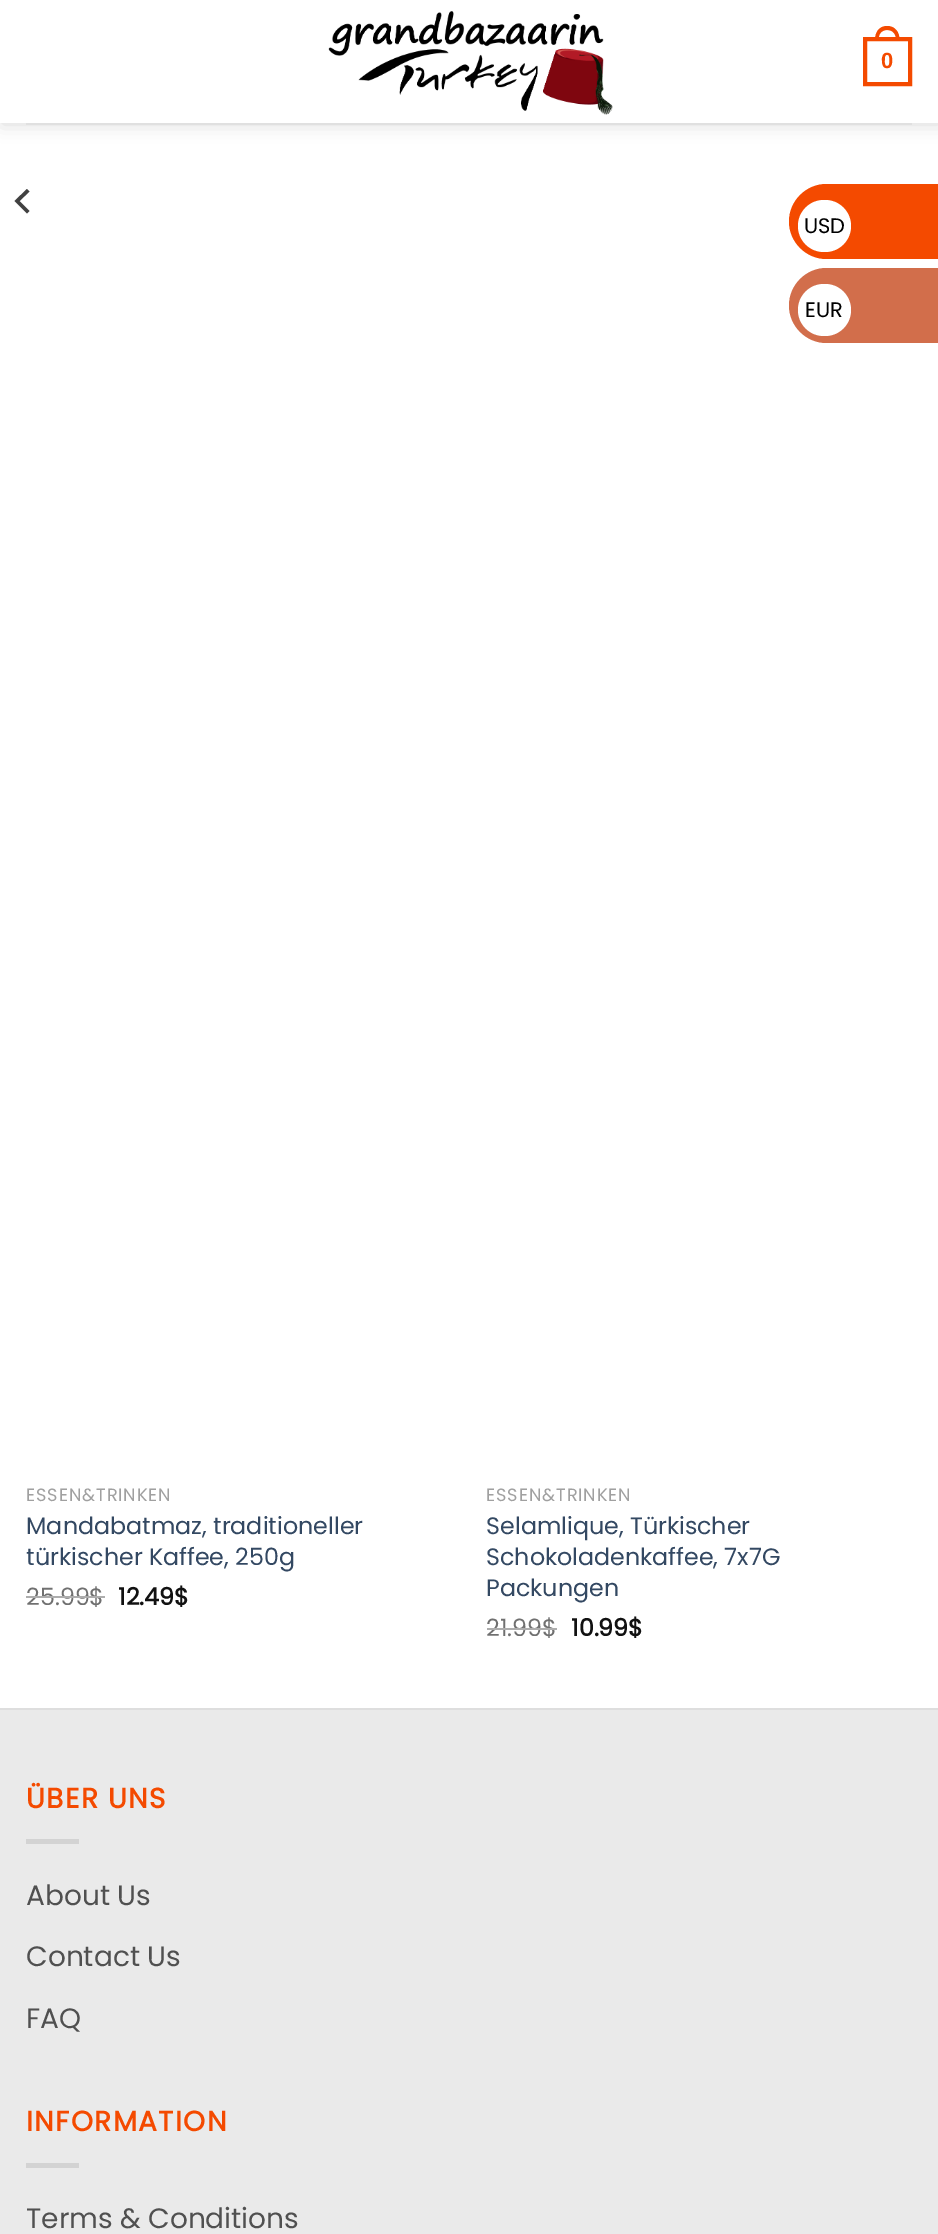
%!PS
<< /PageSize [938 2234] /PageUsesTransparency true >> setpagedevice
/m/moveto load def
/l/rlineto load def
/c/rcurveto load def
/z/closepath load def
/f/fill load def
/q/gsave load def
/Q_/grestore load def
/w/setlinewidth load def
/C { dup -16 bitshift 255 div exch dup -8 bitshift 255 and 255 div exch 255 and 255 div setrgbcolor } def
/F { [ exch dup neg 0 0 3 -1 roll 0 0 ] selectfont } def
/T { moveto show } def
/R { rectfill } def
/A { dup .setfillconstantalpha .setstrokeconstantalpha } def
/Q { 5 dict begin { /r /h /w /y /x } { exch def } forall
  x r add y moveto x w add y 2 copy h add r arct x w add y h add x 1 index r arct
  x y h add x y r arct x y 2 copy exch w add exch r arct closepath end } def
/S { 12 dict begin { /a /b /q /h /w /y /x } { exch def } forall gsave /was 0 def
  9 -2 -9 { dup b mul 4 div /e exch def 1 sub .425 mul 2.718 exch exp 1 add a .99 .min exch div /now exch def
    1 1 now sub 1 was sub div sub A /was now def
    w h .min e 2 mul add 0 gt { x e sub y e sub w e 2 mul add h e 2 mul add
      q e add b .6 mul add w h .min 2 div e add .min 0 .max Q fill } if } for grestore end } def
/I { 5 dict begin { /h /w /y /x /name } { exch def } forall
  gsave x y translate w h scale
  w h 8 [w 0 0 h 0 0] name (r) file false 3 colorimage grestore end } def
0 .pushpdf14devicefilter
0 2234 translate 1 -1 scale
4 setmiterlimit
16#FFFFFF C
0 0 938 2234 R
q
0 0 m 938 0 l 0 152 l -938 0 l z 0 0 m 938 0 l 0 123 l -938 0 l z eoclip newpath
16#000000 C
2 2 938 122 0 9 .15 S
Q_
0.9 A
0 122 938 1 R
1 A
(1.rgb) 328 11 285 104 I
16#F44A00 C
4 w
865 39 45 45 rectstroke
887 26 m 8.5 0 12.5 6.5 12.5 14 c -24.5 0 l 0 -7.5 4 -14 12 -14 c z 887 30 m 6.5 0 9 4.5 9 10 c -17.5 0 l 0 -5.5 2.5 -10 8.5 -10 c z eofill
/LiberationSans-Bold 22 F
(0) 881 68 T
16#E0E0E0 C
26 123 886 2 R
16#414141 C
14.5 201 m 12.5 12.5 l 2.5 -2.5 l -10 -10 l 10 -9.5 l -2.5 -2.5 l z f
/Poppins-Regular 17.75 F
16#A0A0A0 C
26 1501 m .9 0 (ESSEN&TRINKEN) ashow
/Poppins-Regular 23.75 F
16#334862 C
(Mandabatmaz, traditioneller) 26 1534 T
(türkischer Kaffee, 250g) 26 1565 T
16#707070 C
(25.99$) 26 1605 T
16#ADADAD C
26 1596 79 2 R
/Poppins-Bold 23.75 F
16#111111 C
(12.49$) 118 1605 T
/Poppins-Regular 17.75 F
16#A0A0A0 C
486 1501 m .9 0 (ESSEN&TRINKEN) ashow
/Poppins-Regular 23.75 F
16#334862 C
(Selamlique, Türkischer) 486 1534 T
(Schokoladenkaffee, 7x7G) 486 1565 T
(Packungen) 486 1596 T
16#707070 C
(21.99$) 486 1636 T
16#ADADAD C
487 1628 70 2 R
/Poppins-Bold 23.75 F
16#111111 C
(10.99$) 571 1636 T
16#EAEAEA C
0 1710 938 524 R
16#DEDEDE C
0 1708 938 2 R
/Poppins-Bold 28 F
16#F44A00 C
26 1808 m 1.4 0 (ÜBER UNS) ashow
16#D3D3D3 C
26 1839 53 5 R
/Poppins-Regular 28 F
16#505050 C
(About Us) 26 1905 T
(Contact Us) 26 1966 T
(FAQ) 26 2028 T
/Poppins-Bold 28 F
16#F44A00 C
26 2131 m 1.4 0 (INFORMATION) ashow
16#D3D3D3 C
26 2163 53 5 R
/Poppins-Regular 28 F
16#505050 C
(Terms & Conditions) 26 2228 T
16#F44A00 C
826.5 184 m 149.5 0 l 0 75 l -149.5 0 l -20.5 0 -37.5 -17 -37.5 -37.5 c 0 -20.5 17 -37.5 37.5 -37.5 c z f
16#FFFFFF C
798 200 53 52 26 Q f
/Poppins-Regular 21 F
16#000000 C
(USD) 804 233 T
16#D26E4B C
826.5 268 m 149.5 0 l 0 75 l -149.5 0 l -20.5 0 -37.5 -17 -37.5 -37.5 c 0 -20.5 17 -37.5 37.5 -37.5 c z f
16#FFFFFF C
798 284 53 52 26 Q f
16#000000 C
(EUR) 805 317 T
.poppdf14devicefilter showpage
